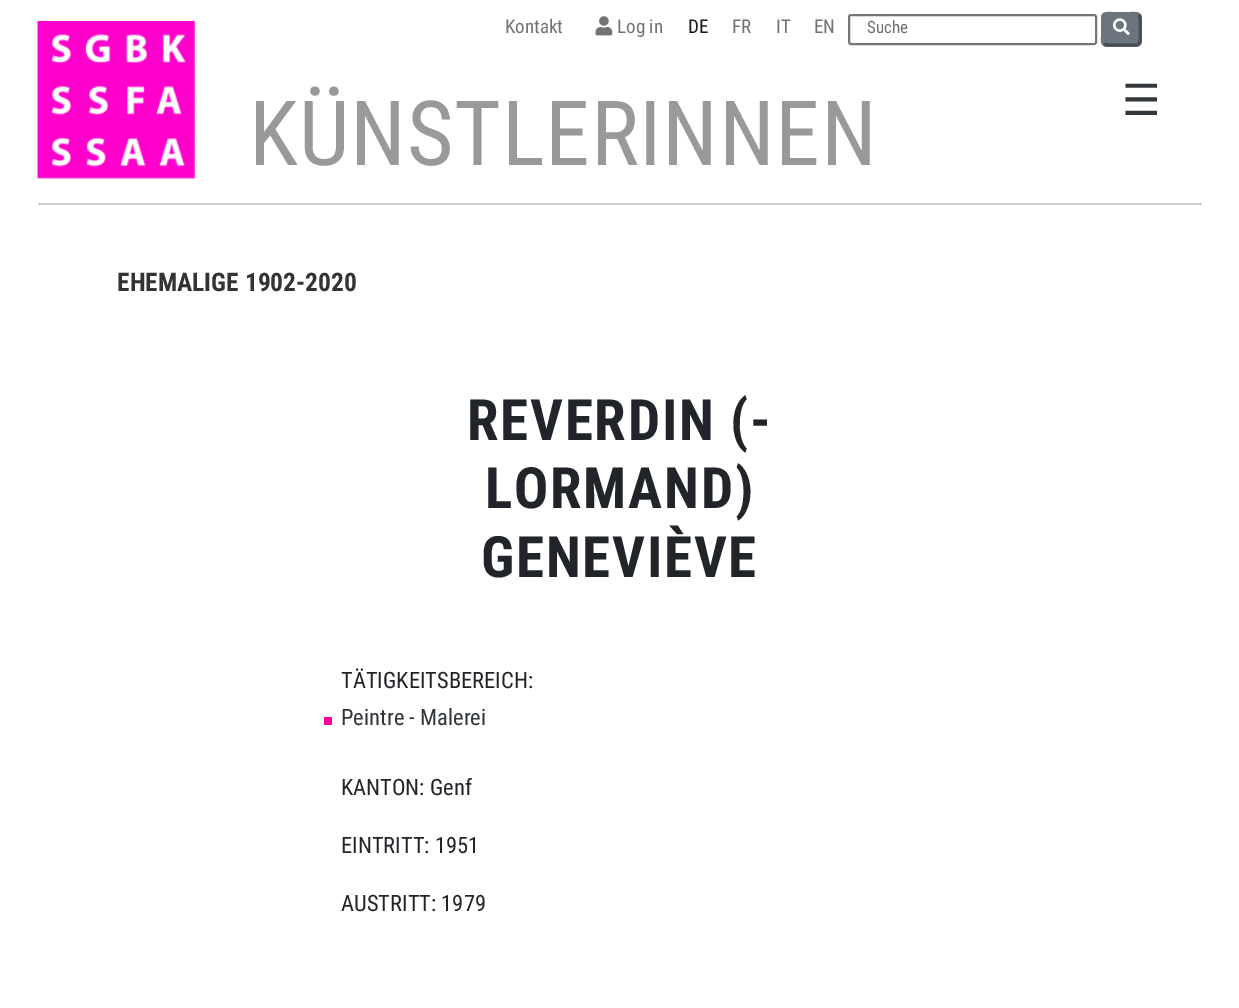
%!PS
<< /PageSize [1239 1008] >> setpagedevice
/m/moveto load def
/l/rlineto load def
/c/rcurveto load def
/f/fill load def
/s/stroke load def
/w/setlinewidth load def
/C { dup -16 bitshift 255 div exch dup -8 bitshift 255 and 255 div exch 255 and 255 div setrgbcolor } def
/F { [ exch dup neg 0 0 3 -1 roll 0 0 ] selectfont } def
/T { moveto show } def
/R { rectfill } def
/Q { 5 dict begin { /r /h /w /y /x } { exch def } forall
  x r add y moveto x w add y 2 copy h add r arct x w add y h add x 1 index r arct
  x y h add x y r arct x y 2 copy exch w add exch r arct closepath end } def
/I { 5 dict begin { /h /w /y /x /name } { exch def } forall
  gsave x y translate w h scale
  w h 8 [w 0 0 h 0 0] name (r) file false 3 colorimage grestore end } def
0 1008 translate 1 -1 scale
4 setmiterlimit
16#FFFFFF C
0 0 1239 1008 R
/RobotoCondensed-Regular 19 F
16#737373 C
(Kontakt) 505 33 T
(1.rgb) 595 16 18 20 I
(Log in) 617 33 T
16#1A1A1A C
(DE) 688 33 T
16#737373 C
(FR) 732 33 T
(IT) 776 33 T
(EN) 814 33 T
16#767676 C
2 w
849 15 247 29 2 Q s
/RobotoCondensed-Regular 17 F
16#737373 C
(Suche) 867 33 T
16#6C757D C
1101 12 41 35 6 Q f
16#484E53 C
3 w
1138.5 15 m 2 1.5 1.5 4.5 1.5 7 c 0 19.5 l -1 4.5 -6 3.5 -9 3.5 c -19 0 l -2.5 0 -6 .5 -8 -1.5 c s
16#6C757D C
1104 43.5 m -2 -1.5 -1.5 -4.5 -1.5 -6.5 c 0 -20 l 1 -4.5 6 -3.5 9.5 -3.5 c 19 0 l 2 0 5.5 -.5 7.5 1.5 c s
(2.rgb) 1113 18 17 17 I
(3.rgb) 37 21 158 158 I
/RobotoCondensed-Regular 90 F
16#999999 C
249 165 m .75 0 (KÜNSTLERINNEN) ashow
/DejaVuSans-Regular 43 F
16#32373C C
(☰) 1122 115 T
16#CCCCCC C
38 203 1164 2 R
/RobotoCondensed-Bold 25.5 F
16#333333 C
(EHEMALIGE 1902-2020) 117 291 T
/RobotoCondensed-Bold 57 F
16#212529 C
467 440 m 1.75 0 (REVERDIN \(-) ashow
485 508 m 1.75 0 (LORMAND\)) ashow
481 577 m 1.75 0 (GENEVIÈVE) ashow
/RobotoCondensed-Regular 22.5 F
(TÄTIGKEITSBEREICH:) 341 688 T
16#FF0099 C
324 717 8 8 R
16#32373C C
(Peintre - Malerei) 341 725 T
16#212529 C
(KANTON: Genf) 341 795 T
(EINTRITT: 1951) 341 853 T
(AUSTRITT: 1979) 341 911 T
showpage
